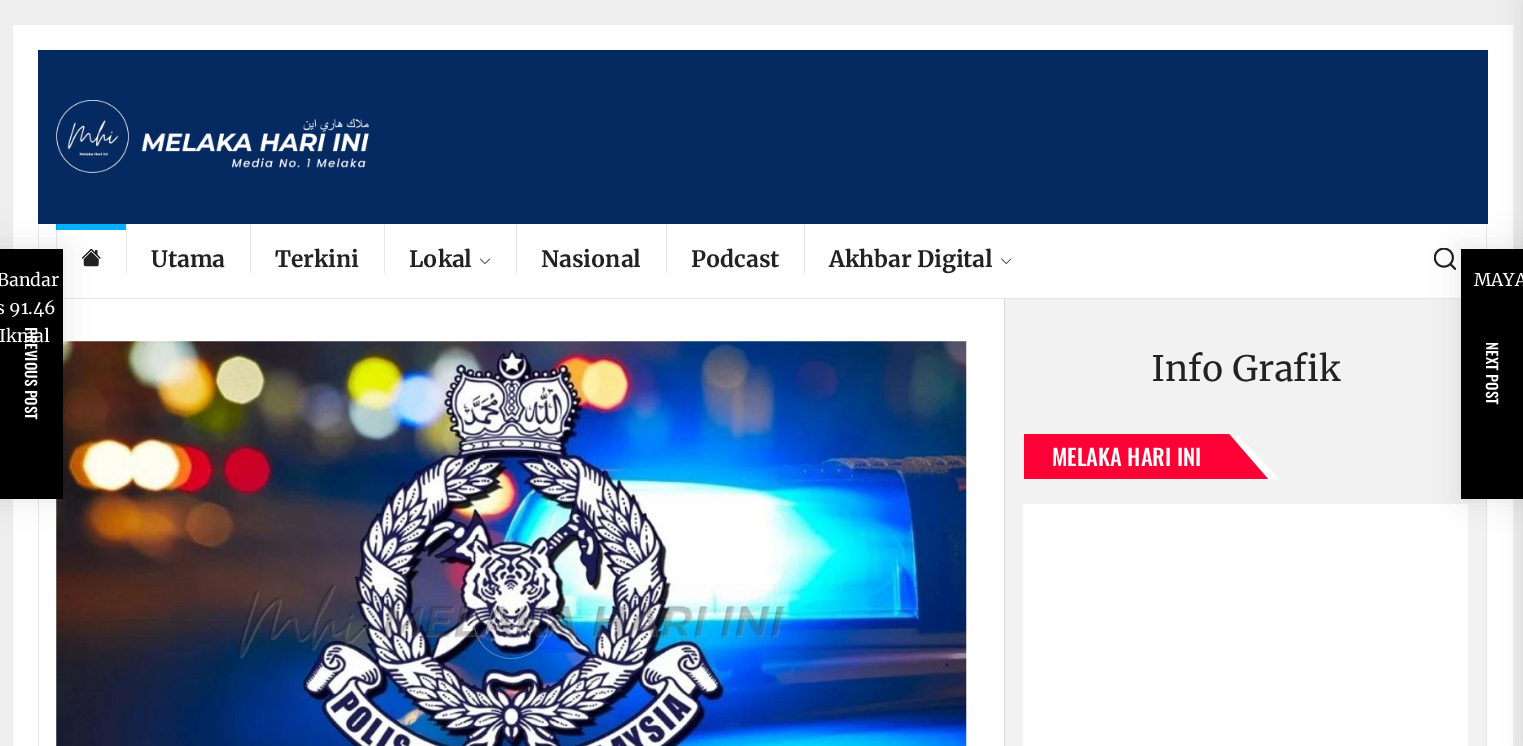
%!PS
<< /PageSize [1523 746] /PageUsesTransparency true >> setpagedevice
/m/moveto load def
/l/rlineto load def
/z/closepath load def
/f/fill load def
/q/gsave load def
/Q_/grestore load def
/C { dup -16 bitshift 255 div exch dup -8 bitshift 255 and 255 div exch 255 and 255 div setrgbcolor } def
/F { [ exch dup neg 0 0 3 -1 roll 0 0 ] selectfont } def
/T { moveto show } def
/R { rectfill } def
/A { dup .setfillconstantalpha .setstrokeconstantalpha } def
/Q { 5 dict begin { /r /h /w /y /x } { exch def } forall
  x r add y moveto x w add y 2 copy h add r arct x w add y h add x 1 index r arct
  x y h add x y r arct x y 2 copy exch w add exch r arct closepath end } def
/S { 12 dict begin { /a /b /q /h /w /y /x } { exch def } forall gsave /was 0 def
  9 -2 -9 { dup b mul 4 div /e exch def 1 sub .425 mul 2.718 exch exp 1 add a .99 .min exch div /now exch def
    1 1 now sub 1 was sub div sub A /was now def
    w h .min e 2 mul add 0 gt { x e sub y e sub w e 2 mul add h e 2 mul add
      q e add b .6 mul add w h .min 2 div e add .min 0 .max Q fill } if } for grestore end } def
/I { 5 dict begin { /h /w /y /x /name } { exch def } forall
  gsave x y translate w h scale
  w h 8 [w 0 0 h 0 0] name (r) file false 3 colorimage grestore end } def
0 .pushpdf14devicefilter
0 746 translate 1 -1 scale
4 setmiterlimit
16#EEEEEE C
0 0 1523 746 R
16#FFFFFF C
13 25 1500 721 R
16#E6E6E6 C
1486 499 1 247 R
38 499 1 247 R
16#052961 C
38 50 1450 174 R
(1.rgb) 56 100 313 73 I
16#E6E6E6 C
38 224 1 25 R
1486 224 1 25 R
56 224 1 25 R
16#00B2FF C
56 224 70 6 R
16#00A0E6 C
56 224 1 6 R
(2.rgb) 81 249 20 18 I
16#E6E6E6 C
126 224 1 49 R
/Merriweather-Bold 22.5 F
16#222222 C
(Utama) 151 267 T
16#E6E6E6 C
250 224 1 49 R
16#222222 C
(Terkini) 275 267 T
16#E6E6E6 C
384 224 1 49 R
16#222222 C
(Lokal) 409 267 T
(3.rgb) 480 258 10 6 I
16#E6E6E6 C
516 224 1 49 R
16#222222 C
(Nasional) 541 267 T
16#E6E6E6 C
666 224 1 49 R
16#222222 C
(Podcast) 691 267 T
16#E6E6E6 C
804 224 1 49 R
16#222222 C
(Akhbar Digital) 829 267 T
(4.rgb) 1001 258 11 6 I
(5.rgb) 1434 248 22 22 I
16#E6E6E6 C
63 298 1398 1 R
16#F2F2F2 C
1005 299 481 447 R
16#FFFFFF C
1023 504 445 242 R
16#000000 C
1461 249 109 250 0 15.5 .1 S
1461 249 62 250 R
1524 0 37 746 0 12.5 .1 S
(6.rgb) 56 341 911 405 I
-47 249 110 250 0 15.5 .1 S
0 249 63 250 R
/Merriweather-Regular 17.5 F
16#FFFFFF C
(Bandar) -3 286 T
(s 91.46) -4 314 T
(Ikmal) -1 342 T
/Oswald-Medium 15 F
q 25 327 translate 90 rotate 0 0 m (PREVIOUS POST) show Q_
/Merriweather-Regular 17.5 F
(MAYA) 1474 286 T
/Oswald-Medium 15 F
q 1486 342 translate 90 rotate 0 0 m (NEXT POST) show Q_
16#DADADA C
1004 299 1 447 R
/Merriweather-Regular 35 F
16#222222 C
(Info Grafik) 1151 381 T
16#FF0036 C
1024 434 205 45 R
16#FFFFFF C
1236 479 m 0 -45 l 43 45 l z f
16#FF0036 C
1229 479 m 0 -45 l 39 45 l z f
/Oswald-Medium 22.5 F
16#FFFFFF C
(MELAKA HARI INI) 1052 466 T
.poppdf14devicefilter showpage
